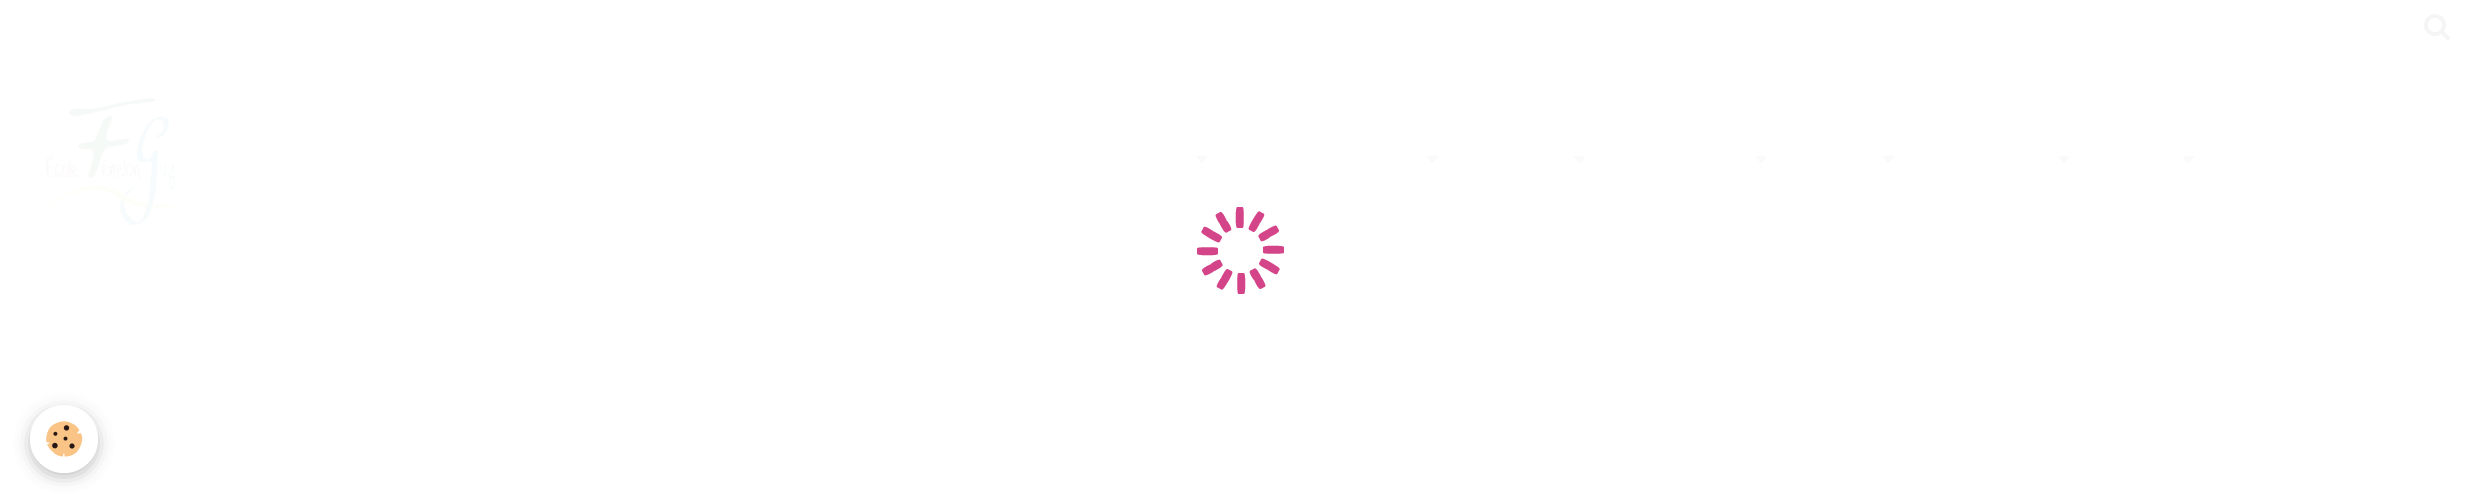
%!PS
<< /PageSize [2480 500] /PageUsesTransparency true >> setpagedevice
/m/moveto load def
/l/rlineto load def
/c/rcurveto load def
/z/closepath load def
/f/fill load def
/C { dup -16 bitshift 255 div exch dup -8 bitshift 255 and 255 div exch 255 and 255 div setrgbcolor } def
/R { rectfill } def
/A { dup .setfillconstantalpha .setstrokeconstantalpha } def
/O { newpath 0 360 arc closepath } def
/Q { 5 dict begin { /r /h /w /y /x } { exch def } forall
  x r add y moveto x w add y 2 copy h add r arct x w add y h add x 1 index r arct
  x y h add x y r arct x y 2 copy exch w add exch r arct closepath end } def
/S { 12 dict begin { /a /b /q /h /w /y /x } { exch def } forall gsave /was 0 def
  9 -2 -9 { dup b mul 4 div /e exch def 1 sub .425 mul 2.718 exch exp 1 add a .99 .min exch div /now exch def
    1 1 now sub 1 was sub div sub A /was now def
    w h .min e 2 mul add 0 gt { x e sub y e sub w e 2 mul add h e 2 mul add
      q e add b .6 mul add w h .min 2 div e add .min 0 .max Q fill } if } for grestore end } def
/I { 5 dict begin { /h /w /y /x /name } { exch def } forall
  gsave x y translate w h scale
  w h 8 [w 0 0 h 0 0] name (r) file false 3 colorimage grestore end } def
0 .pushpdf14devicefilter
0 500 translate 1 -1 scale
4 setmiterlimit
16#FFFFFF C
0 0 2480 500 R
(1.rgb) 2424 14 26 26 I
(2.rgb) 42 95 138 138 I
16#FAFAFA C
1195.5 156 m 12 0 l -6 7.5 l z f
1426.5 156 m 12 0 l -6 7.5 l z f
1573.5 156 m 12 0 l -6 7.5 l z f
1755 156 m 12 0 l -6 7.5 l z f
1882.5 156 m 12 0 l -6 7.5 l z f
2058 156 m 12 0 l -6 7.5 l z f
2182.5 156 m 12 0 l -6 7.5 l z f
16#D34488 C
1237.5 207 m 5 0 l 1.5 1 1 9 1 10.5 c 0 1.5 .5 9.5 -1 10.5 c -5 0 l -2 0 -1.5 -9.5 -1.5 -10.5 c 0 -1 -.5 -10.5 1.5 -10.5 c z 1259.5 211.5 m 4.5 2.5 l 1 1.5 -3.5 8 -4.5 9.5 c -.5 1 -4 8.5 -6 8.5 c -4.5 -2.5 l -1.5 -1 3.5 -9 4 -10 c .5 -.5 5 -9 6.5 -8 c z f
1276.5 226 m 2.5 4.5 l 0 2 -7 5.5 -8.5 6 c -1 1 -7.5 5.5 -9.5 4.5 c -2.5 -4.5 l -1 -2 7.5 -6 8.5 -6.5 c .5 -.5 8.5 -5.5 9.5 -4 c z 1284 247.5 m 0 5 l -1 1.5 -9 1 -10.5 1 c -1.5 0 -9.5 .5 -10.5 -1 c 0 -5 l 0 -2 9.5 -1.5 10.5 -1.5 c 1 0 10.5 -.5 10.5 1.5 c z 1279.5 269.5 m -2.5 4.5 l -1.5 1 -8 -3.5 -9.5 -4.5 c -1 -.5 -8.5 -4 -8.5 -6 c 2.5 -4.5 l 1 -1.5 9 3.5 10 4 c .5 .5 9 5 8 6.5 c z f
1265 286.5 m -4.5 2.5 l -2 0 -5.5 -7 -6 -8.5 c -1 -1 -5.5 -7.5 -4.5 -9.5 c 4.5 -2.5 l 2 -1 6 7.5 6.5 8.5 c .5 .5 5.5 8.5 4 9.5 c z 1243.5 294 m -5 0 l -1.5 -1 -1 -9 -1 -10.5 c 0 -1.5 -.5 -9.5 1 -10.5 c 5 0 l 2 0 1.5 9.5 1.5 10.5 c 0 1 .5 10.5 -1.5 10.5 c z 1221.5 289.5 m -4.5 -2.5 l -1 -1.5 3.5 -8 4.5 -9.5 c .5 -1 4 -8.5 6 -8.5 c 4.5 2.5 l 1.5 1 -3.5 9 -4 10 c -.5 .5 -5 9 -6.5 8 c z f
1204.5 275 m -2.5 -4.5 l 0 -2 7 -5.5 8.5 -6 c 1 -1 7.5 -5.5 9.5 -4.5 c 2.5 4.5 l 1 2 -7.5 6 -8.5 6.5 c -.5 .5 -8.5 5.5 -9.5 4 c z 1197 253.5 m 0 -5 l 1 -1.5 9 -1 10.5 -1 c 1.5 0 9.5 -.5 10.5 1 c 0 5 l 0 2 -9.5 1.5 -10.5 1.5 c -1 0 -10.5 .5 -10.5 -1.5 c z 1201.5 231.5 m 2.5 -4.5 l 1.5 -1 8 3.5 9.5 4.5 c 1 .5 8.5 4 8.5 6 c -2.5 4.5 l -1 1.5 -9 -3.5 -10 -4 c -.5 -.5 -9 -5 -8 -6.5 c z f
1216 214.5 m 4.5 -2.5 l 2 0 5.5 7 6 8.5 c 1 1 5.5 7.5 4.5 9.5 c -4.5 2.5 l -2 1 -6 -7.5 -6.5 -8.5 c -.5 -.5 -5.5 -8.5 -4 -9.5 c z f
16#000000 C
30 410 68 67 33.5 7.5 .24 S
16#FFFFFF C
64 439 34 O f
(3.rgb) 46 421 37 36 I
.poppdf14devicefilter showpage
